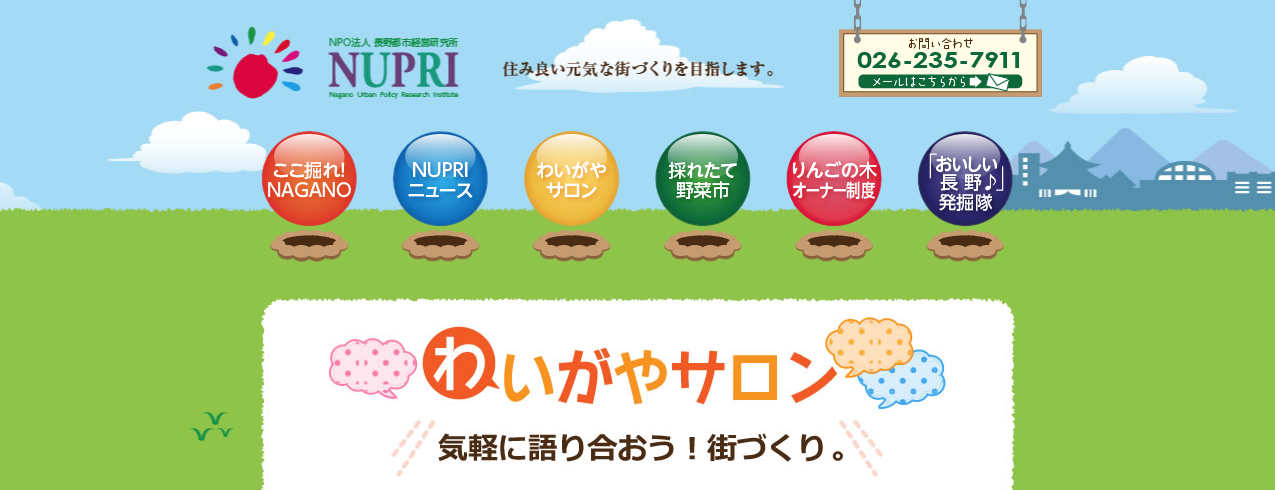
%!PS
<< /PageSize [1275 490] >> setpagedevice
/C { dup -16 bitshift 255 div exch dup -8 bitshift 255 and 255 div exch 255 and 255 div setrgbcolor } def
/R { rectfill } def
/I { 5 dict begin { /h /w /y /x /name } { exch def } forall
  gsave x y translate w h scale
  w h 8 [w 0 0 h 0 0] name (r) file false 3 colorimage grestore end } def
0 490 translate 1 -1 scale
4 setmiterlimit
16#FFFFFF C
0 0 1275 490 R
(1.rgb) 0 216 1275 274 I
(2.rgb) 0 0 1275 216 I
(3.rgb) 839 0 203 97 I
(4.rgb) 245 131 129 131 I
(5.rgb) 375 131 130 131 I
(6.rgb) 505 131 130 131 I
(7.rgb) 639 131 126 131 I
(8.rgb) 765 131 129 131 I
(9.rgb) 895 131 130 131 I
(10.rgb) 261 339 754 151 I
(11.rgb) 256 297 760 42 I
(12.rgb) 329 317 617 160 I
showpage
